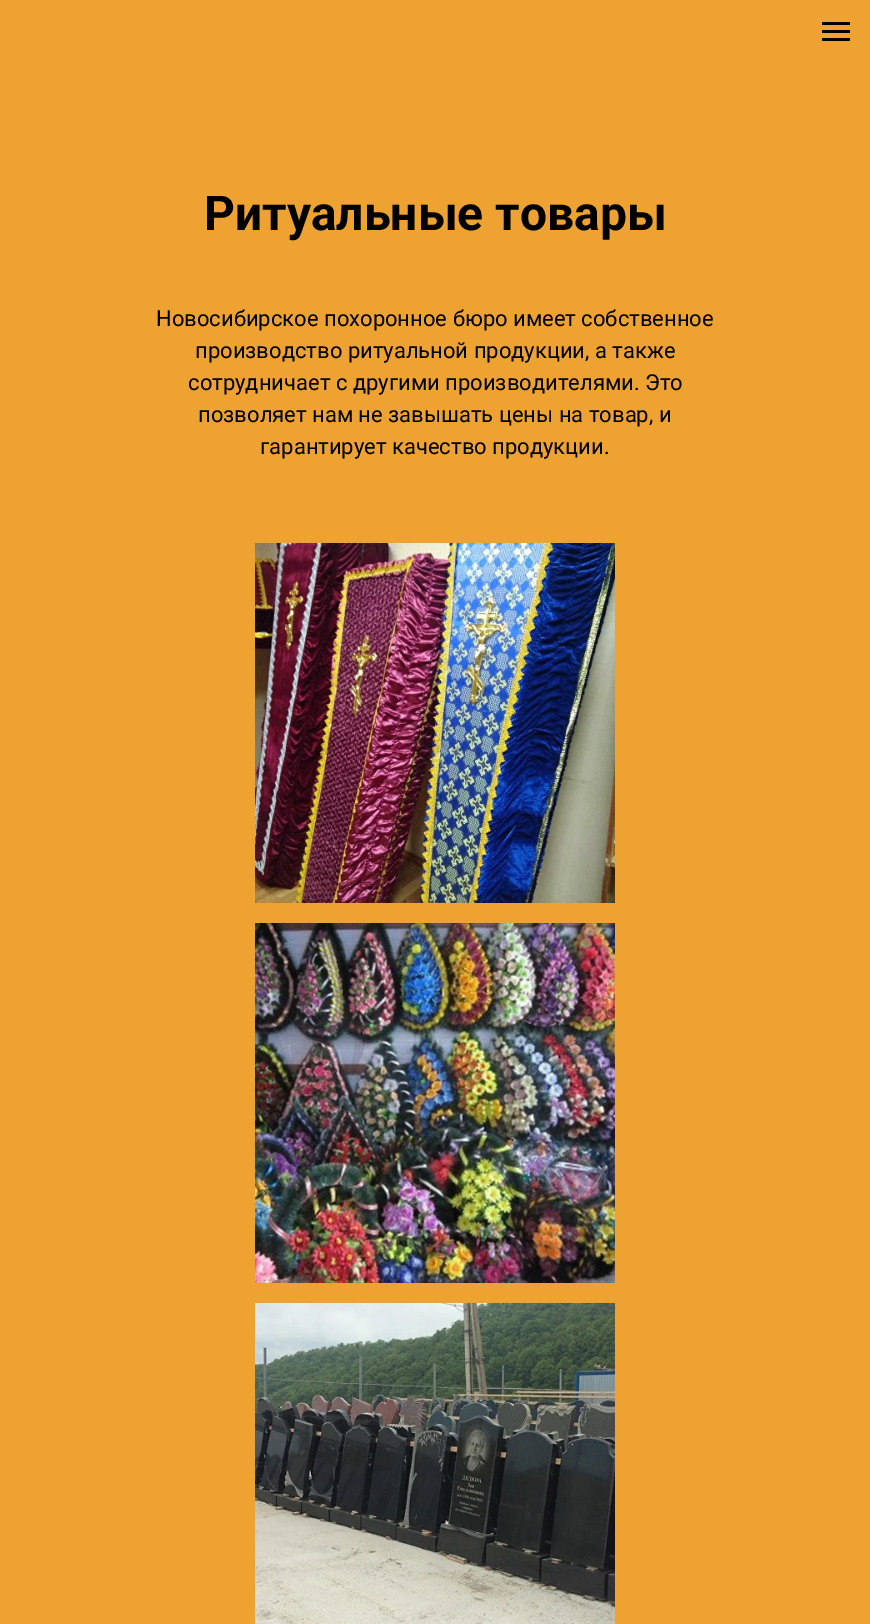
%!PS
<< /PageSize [870 1624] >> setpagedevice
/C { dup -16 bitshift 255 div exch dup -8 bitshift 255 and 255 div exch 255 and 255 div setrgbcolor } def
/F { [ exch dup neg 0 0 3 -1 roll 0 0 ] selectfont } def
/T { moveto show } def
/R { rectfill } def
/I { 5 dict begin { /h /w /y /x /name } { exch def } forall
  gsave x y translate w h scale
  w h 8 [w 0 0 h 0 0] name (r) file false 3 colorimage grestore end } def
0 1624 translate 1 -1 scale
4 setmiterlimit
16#EDA232 C
0 0 870 1624 R
16#000000 C
822 22 28 3 R
822 30 28 3 R
822 38 28 3 R
/Roboto-Bold 48 F
(Ритуальные товары) 204 230 T
/Roboto-Regular 22 F
(Новосибирское похоронное бюро имеет собственное) 156 326 T
(производство ритуальной продукции, а также) 195 358 T
(сотрудничает с другими производителями. Это) 188 390 T
(позволяет нам не завышать цены на товар, и) 198 422 T
(гарантирует качество продукции.) 260 454 T
(1.rgb) 255 543 360 360 I
(2.rgb) 255 923 360 360 I
(3.rgb) 255 1303 360 321 I
showpage
